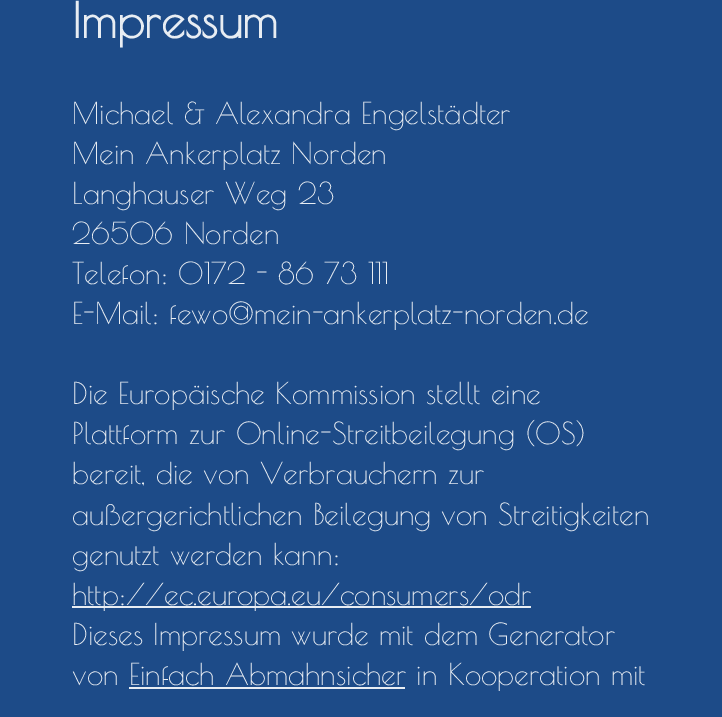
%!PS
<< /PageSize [722 717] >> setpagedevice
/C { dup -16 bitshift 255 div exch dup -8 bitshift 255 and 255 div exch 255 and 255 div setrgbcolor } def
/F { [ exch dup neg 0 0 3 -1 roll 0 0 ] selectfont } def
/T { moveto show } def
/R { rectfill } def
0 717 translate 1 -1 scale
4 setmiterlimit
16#1D4B88 C
0 0 722 717 R
/PoiretOne-Bold 48 F
16#E8EDF3 C
(Impressum) 72 38 T
/PoiretOne-Regular 29.75 F
(Michael & Alexandra Engelstädter) 72 124 T
(Mein Ankerplatz Norden) 72 164 T
(Langhauser Weg 23) 72 204 T
(26506 Norden) 72 244 T
(Telefon: 0172 - 86 73 111) 72 284 T
(E-Mail: fewo@mein-ankerplatz-norden.de) 72 324 T
(Die Europäische Kommission stellt eine) 72 404 T
(Plattform zur Online-Streitbeilegung \(OS\)) 72 444 T
(bereit, die von Verbrauchern zur) 72 484 T
(außergerichtlichen Beilegung von Streitigkeiten) 72 525 T
(genutzt werden kann:) 72 565 T
72 606 459 2 R
(http://ec.europa.eu/consumers/odr) 72 605 T
(Dieses Impressum wurde mit dem Generator) 72 645 T
(von Einfach Abmahnsicher in Kooperation mit) 72 685 T
129 687 276 2 R
showpage
